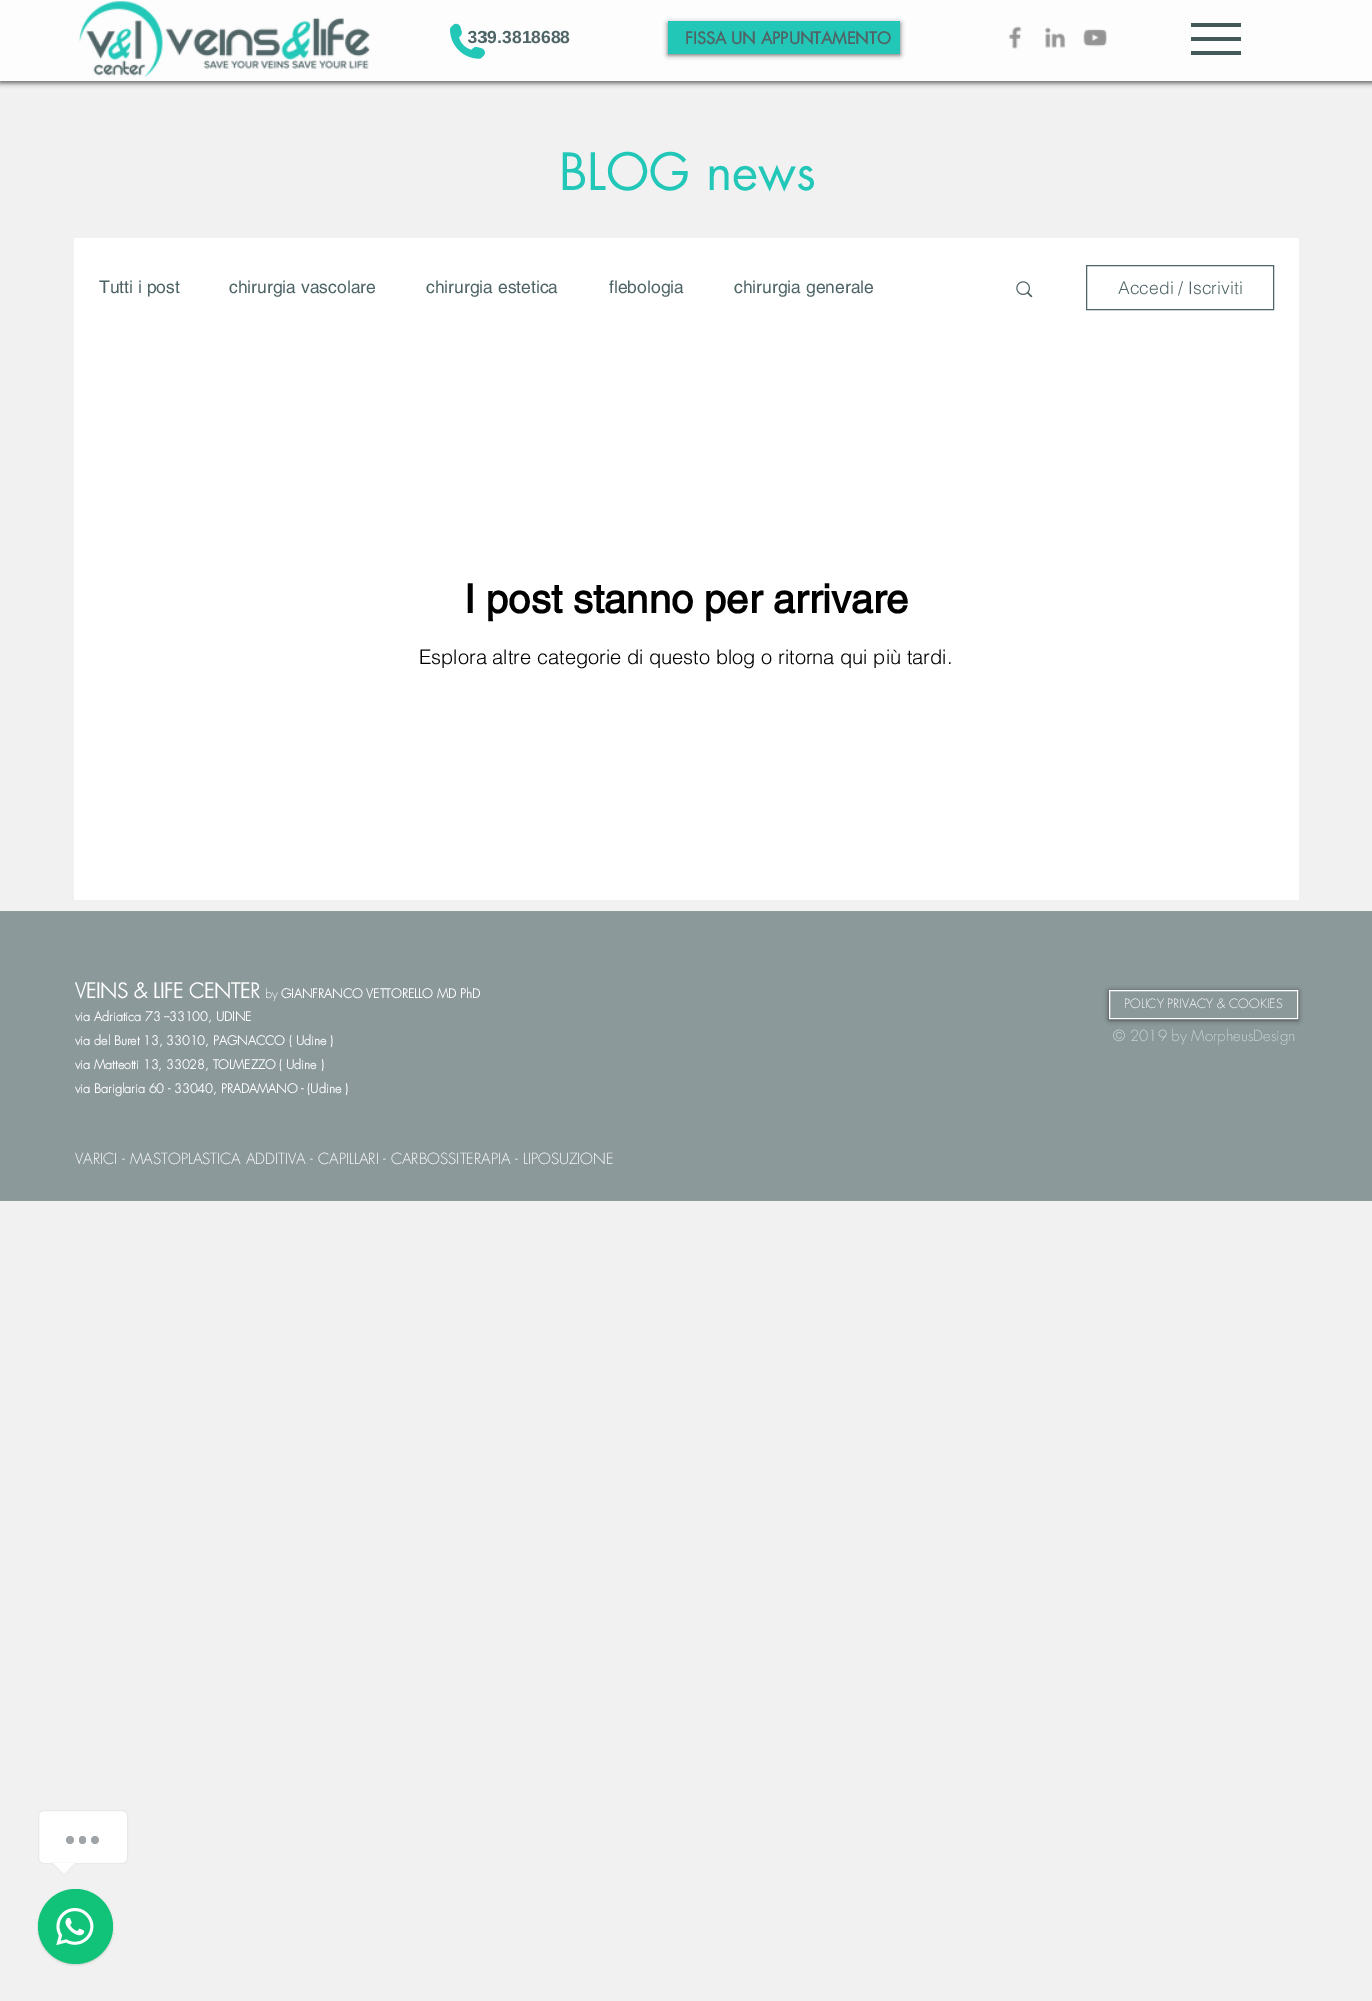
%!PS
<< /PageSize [1372 2001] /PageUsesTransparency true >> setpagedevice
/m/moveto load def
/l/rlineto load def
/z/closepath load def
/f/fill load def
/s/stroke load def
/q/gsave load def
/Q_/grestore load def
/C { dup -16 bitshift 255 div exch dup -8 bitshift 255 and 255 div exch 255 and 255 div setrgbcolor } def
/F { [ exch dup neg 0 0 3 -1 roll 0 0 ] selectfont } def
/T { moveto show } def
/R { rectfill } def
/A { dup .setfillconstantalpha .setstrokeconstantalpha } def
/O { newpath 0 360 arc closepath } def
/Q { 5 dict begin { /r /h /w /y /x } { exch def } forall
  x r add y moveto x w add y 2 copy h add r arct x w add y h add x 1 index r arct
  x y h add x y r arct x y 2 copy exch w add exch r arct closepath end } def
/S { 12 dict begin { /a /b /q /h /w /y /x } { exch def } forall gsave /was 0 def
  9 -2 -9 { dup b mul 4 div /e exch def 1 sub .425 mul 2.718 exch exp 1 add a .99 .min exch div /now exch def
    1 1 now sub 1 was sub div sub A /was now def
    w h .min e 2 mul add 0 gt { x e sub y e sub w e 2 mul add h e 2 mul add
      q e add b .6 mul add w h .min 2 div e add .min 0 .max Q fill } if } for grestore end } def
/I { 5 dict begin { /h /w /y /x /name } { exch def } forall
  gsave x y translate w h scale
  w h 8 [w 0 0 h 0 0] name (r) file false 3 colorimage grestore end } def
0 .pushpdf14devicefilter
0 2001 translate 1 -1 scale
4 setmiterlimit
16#F1F1F1 C
0 0 1372 2001 R
16#000000 C
0 1 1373 82 0 2.5 .6 S
16#FDFDFD C
0 0 1372 81 R
(1.rgb) 78 1 293 77 I
/LiberationSans-Bold 17.5 F
16#4F6466 C
(339.3818688) 468 43 T
(2.rgb) 450 23 35 36 I
16#000000 C
668 23 232 32 0 2.5 .6 S
16#22C7B8 C
668 21 232 33 R
/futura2-Bold 16.25 F
16#4F6466 C
(FISSA UN APPUNTAMENTO) 685 44 T
(3.rgb) 1008 26 14 23 I
(4.rgb) 1045 27 21 21 I
(5.rgb) 1083 29 24 18 I
16#445A5A C
1191 51 50 4 R
1191 23 50 4 R
1191 37 50 4 R
/futura-Regular 50 F
16#22C7B8 C
(BLOG news) 559 190 T
16#FFFFFF C
74 238 1225 662 R
/helvetica-Regular 17.5 F
16#4F6466 C
(Tutti i post) 99 293 T
(chirurgia vascolare) 229 293 T
(chirurgia estetica) 426 293 T
(flebologia) 609 293 T
(chirurgia generale) 734 293 T
(6.rgb) 1016 281 17 17 I
1086.5 265.5 187 44 rectstroke
/helvetica-Light 17.5 F
(Accedi / Iscriviti) 1118 294 T
/helvetica-Bold 40 F
16#000000 C
(I post stanno per arrivare) 464 613 T
/helvetica-Light 20 F
(Esplora altre categorie di questo blog o ritorna qui più tardi.) 419 664 T
16#8C999B C
0 911 1372 290 R
/Futura-Bold 20 F
16#FFFFFF C
(VEINS & LIFE CENTER) 75 998 T
/Futura-Light 12.5 F
(by) 265 998 T
/Futura-Bold 12.5 F
(GIANFRANCO VETTORELLO MD PhD) 281 998 T
(via Adriatica 73 --33100, UDINE) 75 1021 T
(via del Buret 13, 33010, PAGNACCO \( Udine \)) 75 1045 T
(via Matteotti 13, 33028, TOLMEZZO \( Udine \)) 75 1069 T
(via Bariglaria 60 - 33040, PRADAMANO - \(Udine \)) 75 1093 T
/Futura-Light 15 F
(VARICI - MASTOPLASTICA ADDITIVA - CAPILLARI - CARBOSSITERAPIA - LIPOSUZIONE) 75 1164 T
q
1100 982 m 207 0 l 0 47 l -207 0 l z 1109 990 m 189 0 l 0 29 l -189 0 l z eoclip newpath
16#000000 C
1109 991 189 29 0 2.5 .6 S
Q_
1109.5 990.5 188 28 rectstroke
/futura2-Light 12.5 F
(POLICY PRIVACY & COOKIES) 1124 1008 T
/Futura-Light 15 F
16#C5D7D7 C
(© 2019 by MorpheusDesign) 1113 1041 T
16#FFFFFF C
38.5 1810.5 89 53 5.5 Q q f Q_
16#E9E9E9 C
s
16#9FA4A8 C
70 1840 4 O f
79 1836 7 8 3.5 Q f
95 1840 4 O f
16#E9E9E9 C
51 1862.5 m 25 0 l -12 12.5 l z f
16#FFFFFF C
52.5 1862.5 m 22.5 0 l -11 11.5 l z f
16#000000 C
38 1890 75 75 37.5 1 .15 S
16#10C379 C
75.5 1926.5 37.5 O f
(7.rgb) 56 1908 38 38 I
.poppdf14devicefilter showpage
